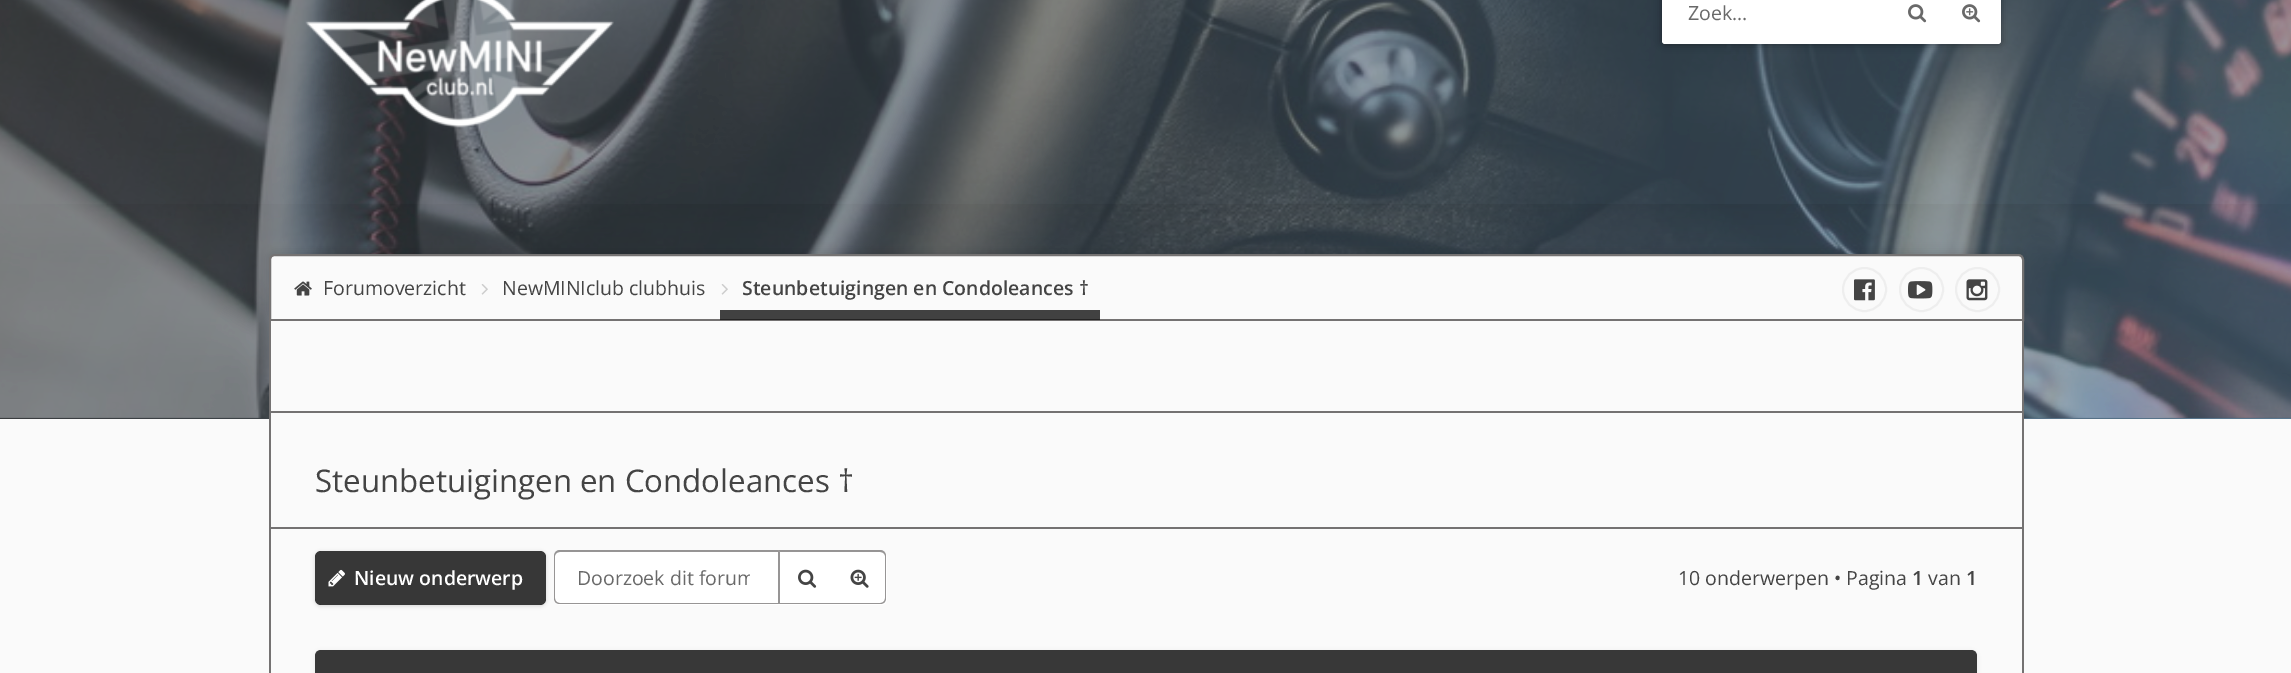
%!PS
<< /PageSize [2291 673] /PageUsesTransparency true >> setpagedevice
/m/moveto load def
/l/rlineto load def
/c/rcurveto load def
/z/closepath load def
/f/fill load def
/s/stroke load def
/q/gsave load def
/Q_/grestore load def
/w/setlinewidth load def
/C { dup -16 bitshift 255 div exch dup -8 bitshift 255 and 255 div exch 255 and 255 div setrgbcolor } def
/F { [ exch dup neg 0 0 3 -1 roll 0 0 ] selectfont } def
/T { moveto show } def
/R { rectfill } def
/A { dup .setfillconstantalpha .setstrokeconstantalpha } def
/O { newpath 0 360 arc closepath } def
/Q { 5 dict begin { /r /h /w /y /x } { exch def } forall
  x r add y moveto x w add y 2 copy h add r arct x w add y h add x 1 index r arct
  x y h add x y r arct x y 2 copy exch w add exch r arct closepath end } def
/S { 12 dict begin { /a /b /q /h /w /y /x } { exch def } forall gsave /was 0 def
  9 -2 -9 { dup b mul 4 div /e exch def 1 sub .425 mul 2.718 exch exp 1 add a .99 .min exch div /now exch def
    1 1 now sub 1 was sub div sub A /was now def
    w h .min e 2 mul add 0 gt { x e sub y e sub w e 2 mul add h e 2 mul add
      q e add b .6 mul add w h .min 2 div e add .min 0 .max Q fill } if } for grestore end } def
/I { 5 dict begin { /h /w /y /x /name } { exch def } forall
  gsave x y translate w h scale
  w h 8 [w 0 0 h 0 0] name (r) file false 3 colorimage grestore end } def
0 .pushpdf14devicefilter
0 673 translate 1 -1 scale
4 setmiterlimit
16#FAFAFA C
0 0 2291 673 R
q 0 0 m 2291 0 l 0 419 l -2291 0 l z clip newpath
<< /ShadingType 2 /ColorSpace /DeviceRGB /Coords [31 -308 2261 503] /Extend [true true] /Function << /FunctionType 2 /Domain [0 1] /C0 [.216 .216 .216] /C1 [.349 .467 .561] /N 1 >> >> shfill Q_
q
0 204 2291 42 rectclip
16#000000 C
0 -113 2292 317 0 37.5 .15 S
Q_
(1.rgb) 0 0 2291 418 I
(2.rgb) 305 0 309 128 I
16#000000 C
1662 -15 339 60 3 4 .35 S
16#FFFFFF C
1662 -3 339 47 3 Q f
/OpenSans-Regular 19.5 F
16#696969 C
(Zoek…) 1688 20 T
(3.rgb) 1908 4 19 19 I
(4.rgb) 1962 4 19 19 I
16#000000 C
269 251 1755 67 6 4 .1 S
16#FAFAFA C
275 255 m 1743 0 l 3 0 5 2 5 5 c 0 60 l -1753 0 l 0 -60 l 0 -3 2 -5 5 -5 c z q f Q_
16#747272 C
2 w
s
(5.rgb) 294 281 18 15 I
16#444444 C
(Forumoverzicht) 323 295 T
(6.rgb) 481 284 7 11 I
(NewMINIclub clubhuis) 502 295 T
(6.rgb) 721 284 7 11 I
0.78 A
16#0D0D0D C
720 310 m 0 10 l 380 0 l 0 -44 l 0 34 l z f
/OpenSans-SemiBold 19.5 F
1 A
16#444444 C
(Steunbetuigingen en Condoleances †) 742 295 T
16#EEEEEE C
1864.5 289.5 21.5 O s
(7.rgb) 1854 279 21 22 I
1921.5 289.5 21.5 O s
(8.rgb) 1908 281 25 18 I
1977.5 289.5 21.5 O s
(9.rgb) 1966 279 22 22 I
16#FAFAFA C
271 321 1751 98 R
16#747272 C
2022 321 2 352 R
269 321 2 352 R
270 411 1752 2 R
/OpenSans-Regular 31.25 F
16#444444 C
(Steunbetuigingen en Condoleances †) 315 492 T
16#747272 C
270 527 1752 2 R
q
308 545 m 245 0 l 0 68 l -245 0 l z 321 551 m 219 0 l 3.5 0 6 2.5 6 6 c 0 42 l 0 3.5 -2.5 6 -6 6 c -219 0 l -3.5 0 -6 -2.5 -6 -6 c 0 -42 l 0 -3.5 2.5 -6 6 -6 c z eoclip newpath
16#000000 C
315 552 231 54 6 2 .15 S
Q_
0.78 A
16#000000 C
315 551 231 54 6 Q f
1 A
(10.rgb) 328 569 17 18 I
/OpenSans-SemiBold 19.5 F
16#FFFFFF C
(Nieuw onderwerp) 354 585 T
560 551 m 219 0 l 0 54 l -219 0 l -3.5 0 -6 -2.5 -6 -6 c 0 -42 l 0 -3.5 2.5 -6 6 -6 c z f
0.75 A
16#747272 C
560 550 m 218 0 l 0 54 l -218 0 l -4 0 -6 -2 -6 -6 c 0 -42 l 0 -3 2 -6 6 -6 c z 560 552 m 218 0 l 0 51 l -218 0 l -3 0 -5 -2 -5 -5 c 0 -42 l 0 -2 2 -4 5 -4 c z eofill
q
578 564 172 27 rectclip
/OpenSans-Regular 19.5 F
1 A
16#696969 C
(Doorzoek dit forum) 577 585 T
Q_
1 A
16#FFFFFF C
779 551 54 54 R
0.75 A
16#747272 C
778 550 m 54 0 l 0 2 l -52 0 l z f
1 A
16#979595 C
832 604 m -54 0 l 2 -1 l 52 0 l z f
0.75 A
16#747272 C
778 604 m 0 -54 l 2 2 l 0 51 l z f
1 A
(11.rgb) 798 569 19 19 I
16#FFFFFF C
833 551 m 48 0 l 3.5 0 6 2.5 6 6 c 0 42 l 0 3.5 -2.5 6 -6 6 c -48 0 l z f
0.75 A
16#747272 C
832 550 m 48 0 l 4 0 6 3 6 6 c 0 42 l 0 4 -2 6 -6 6 c -48 0 l z 832 552 m 48 0 l 3 0 5 2 5 4 c 0 42 l 0 3 -2 5 -5 5 c -48 0 l z eofill
1 A
(12.rgb) 850 569 19 19 I
/OpenSans-Regular 19.5 F
16#444444 C
(10 onderwerpen • Pagina) 1678 585 T
/OpenSans-SemiBold 19.5 F
(1) 1912 585 T
/OpenSans-Regular 19.5 F
(van) 1928 585 T
/OpenSans-SemiBold 19.5 F
(1) 1966 585 T
16#000000 C
315 651 1662 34 6 2 .07 S
16#383838 C
321 650 m 1650 0 l 3.5 0 6 2.5 6 6 c 0 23 l -1662 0 l 0 -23 l 0 -3.5 2.5 -6 6 -6 c z f
.poppdf14devicefilter showpage
